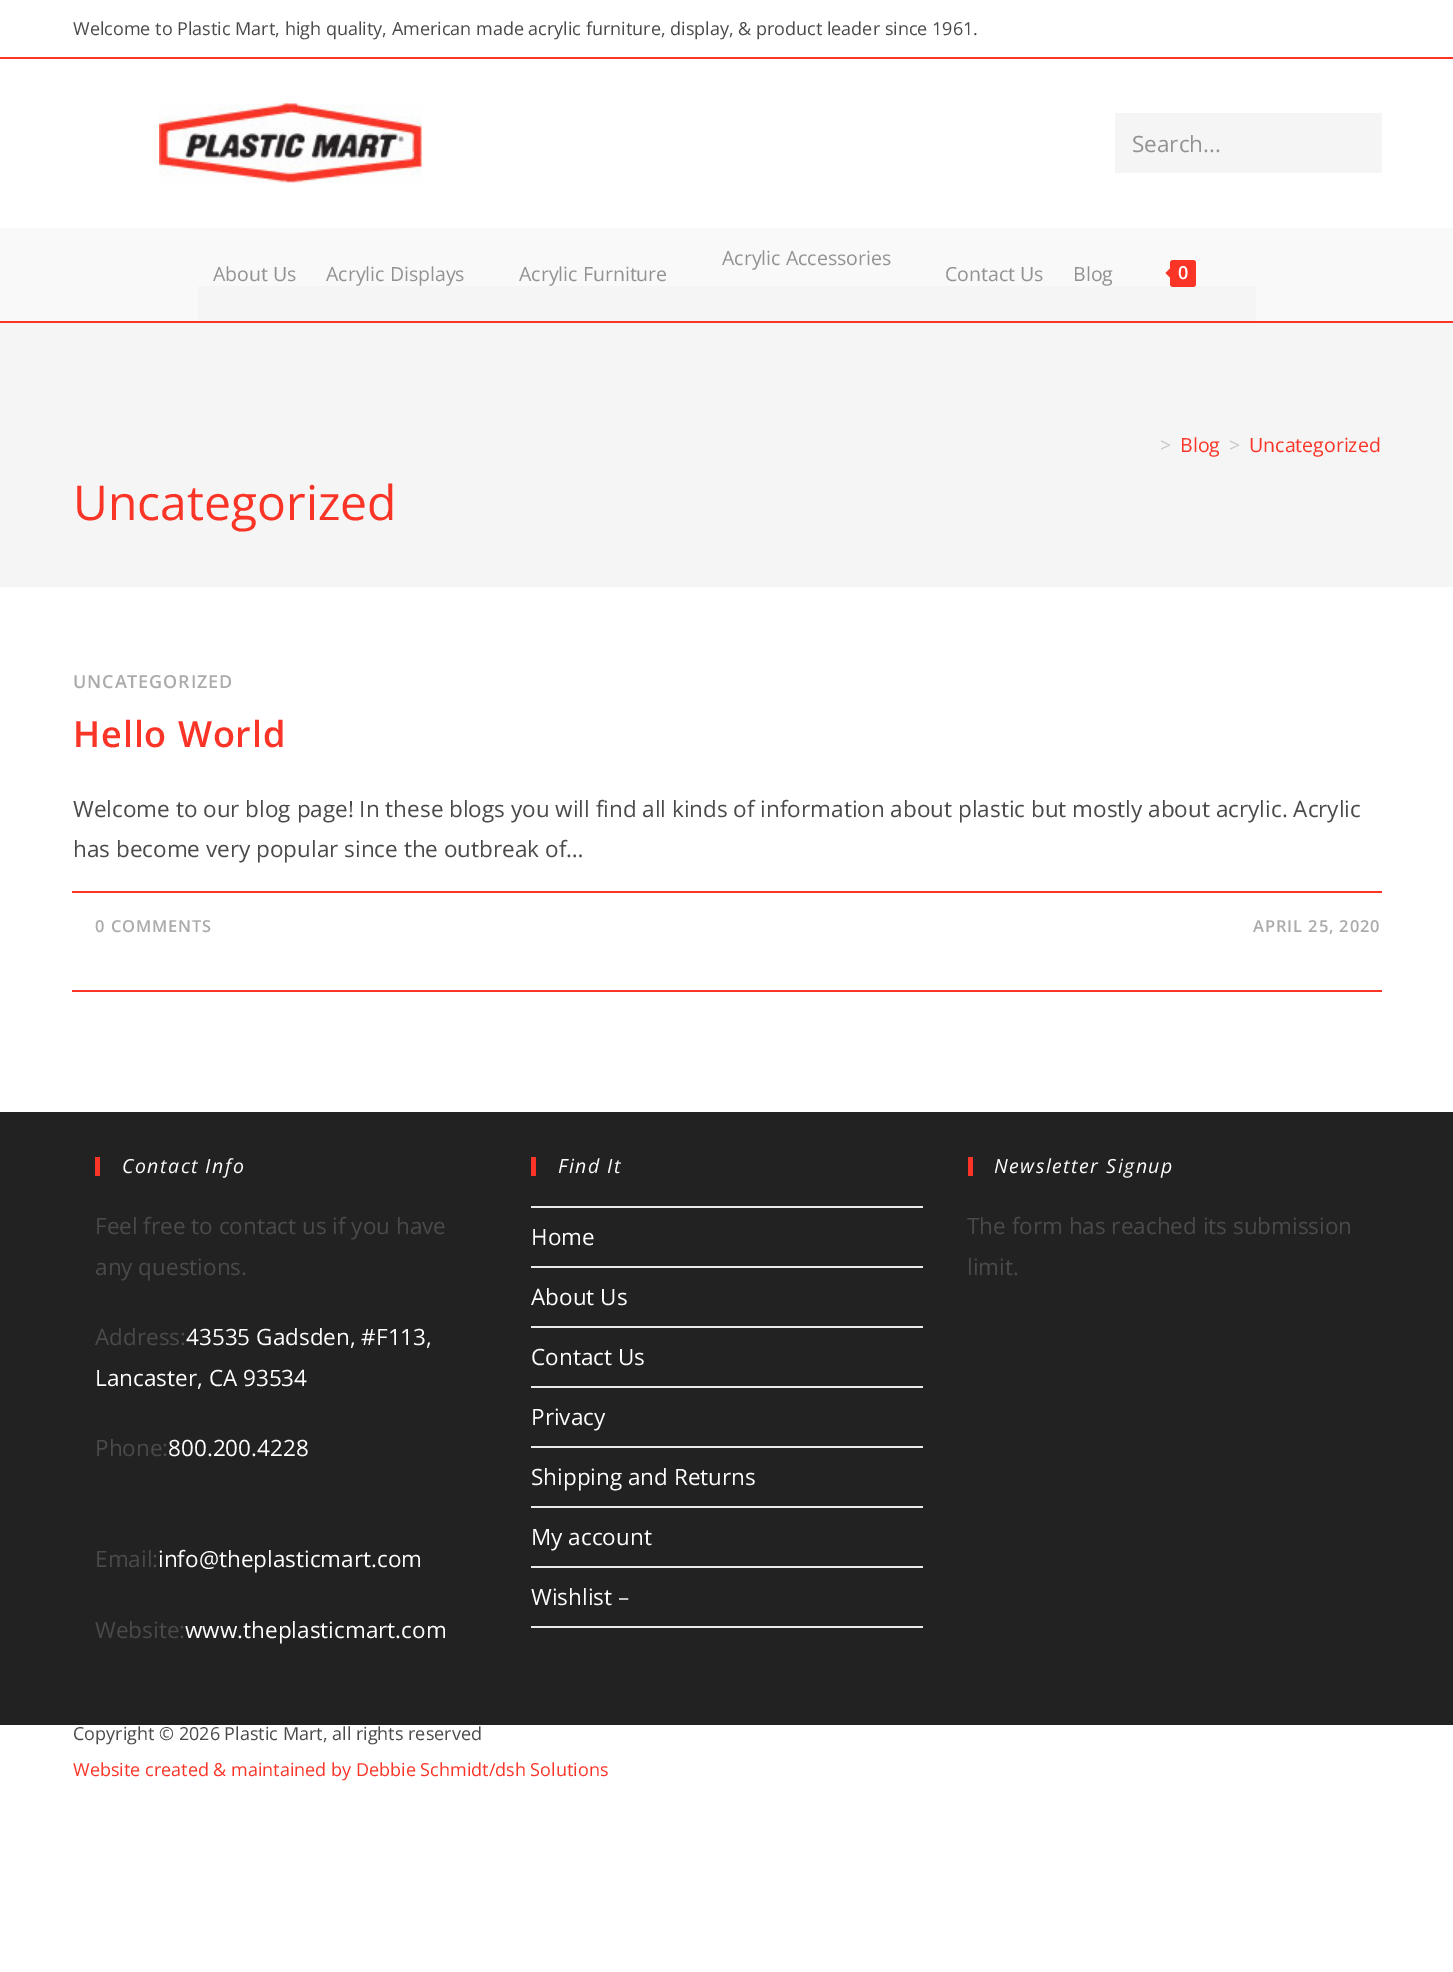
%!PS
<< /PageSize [1453 1972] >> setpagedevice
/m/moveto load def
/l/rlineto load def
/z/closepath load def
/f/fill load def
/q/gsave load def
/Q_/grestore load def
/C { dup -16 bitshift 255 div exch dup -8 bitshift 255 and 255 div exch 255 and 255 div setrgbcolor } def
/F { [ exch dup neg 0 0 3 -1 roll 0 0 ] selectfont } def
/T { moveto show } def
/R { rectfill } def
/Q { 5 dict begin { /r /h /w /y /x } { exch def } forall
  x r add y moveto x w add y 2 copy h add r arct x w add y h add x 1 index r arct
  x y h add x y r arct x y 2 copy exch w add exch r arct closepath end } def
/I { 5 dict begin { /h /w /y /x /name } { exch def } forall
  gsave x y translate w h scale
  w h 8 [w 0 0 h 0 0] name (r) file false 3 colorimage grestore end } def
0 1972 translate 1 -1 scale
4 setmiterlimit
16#FFFFFF C
0 0 1453 1972 R
16#FA3527 C
0 57 1453 2 R
/OpenSans-Regular 18 F
16#4A4A4A C
(Welcome to Plastic Mart, high quality, American made acrylic furniture, display, & product leader since 1961.) 73 35 T
16#FA3527 C
0 321 1453 2 R
(1.rgb) 159 103 263 80 I
16#F5F5F5 C
1115 113 267 60 R
/OpenSans-Regular 22.5 F
16#929292 C
(Search...) 1132 152 T
16#F9F9F9 C
0 228 1453 93 R
q 198 286 m 1058 0 l 0 35 l -1058 0 l z clip newpath
<< /ShadingType 2 /ColorSpace /DeviceRGB /Coords [727 228 727 321] /Extend [true true] /Function << /FunctionType 2 /Domain [0 1] /C0 [.976 .976 .976] /C1 [.961 .961 .961] /N 1 >> >> shfill Q_
/OpenSans-Regular 19.5 F
16#929292 C
(Acrylic Accessories) 722 265 T
(About Us) 213 281 T
(Acrylic Displays) 326 281 T
(Acrylic Furniture) 519 281 T
(Contact Us) 945 281 T
(Blog) 1073 281 T
16#FA3527 C
1170 260 26 27 3 Q f
1173 265.5 m 0 15 l -7.5 -7.5 l z f
/OpenSans-SemiBold 18 F
16#FFFFFF C
(0) 1178 279 T
16#F5F5F5 C
0 323 1453 264 R
/OpenSans-Regular 19.5 F
16#C6C6C6 C
(>) 1160 452 T
16#FA3527 C
(Blog) 1180 452 T
16#C6C6C6 C
(>) 1229 452 T
16#FA3527 C
(Uncategorized) 1249 452 T
/OpenSans-Regular 48 F
(Uncategorized) 73 520 T
72 990 1310 2 R
/OpenSans-SemiBold 18 F
16#ABABAB C
73 688 m .9 0 (UNCATEGORIZED) ashow
/OpenSans-SemiBold 36 F
16#FA3527 C
73 747 m .9 0 (Hello World) ashow
/OpenSans-Regular 22.5 F
16#4A4A4A C
(Welcome to our blog page! In these blogs you will find all kinds of information about plastic but mostly about acrylic. Acrylic) 73 817 T
(has become very popular since the outbreak of…) 73 857 T
16#FA3527 C
72 891 1310 2 R
/OpenSans-SemiBold 16.5 F
16#ABABAB C
95 932 m .9 0 (0 COMMENTS) ashow
1253 932 m .9 0 (APRIL 25, 2020) ashow
16#222222 C
0 1112 1453 613 R
16#FA3527 C
95 1157 5 19 R
/OpenSans-Italic 19.5 F
16#FFFFFF C
122 1173 m 1.5 0 (Contact Info) ashow
/OpenSans-Regular 22.5 F
16#4A4A4A C
(Feel free to contact us if you have) 95 1234 T
(any questions.) 95 1275 T
(Address:) 95 1345 T
16#FFFFFF C
(43535 Gadsden, #F113,) 186 1345 T
(Lancaster, CA 93534) 95 1386 T
16#4A4A4A C
(Phone:) 95 1456 T
16#FFFFFF C
(800.200.4228) 168 1456 T
16#4A4A4A C
(Email:) 95 1567 T
16#FFFFFF C
(info@theplasticmart.com) 158 1567 T
16#4A4A4A C
(Website:) 95 1638 T
16#FFFFFF C
(www.theplasticmart.com) 185 1638 T
16#FA3527 C
531 1157 5 19 R
/OpenSans-Italic 19.5 F
16#FFFFFF C
558 1173 m 1.5 0 (Find It) ashow
16#E9E9E9 C
531 1206 392 2 R
531 1266 392 2 R
/OpenSans-Regular 22.5 F
16#FFFFFF C
(Home) 531 1245 T
16#E9E9E9 C
531 1326 392 2 R
16#FFFFFF C
(About Us) 531 1305 T
16#E9E9E9 C
531 1386 392 2 R
16#FFFFFF C
(Contact Us) 531 1365 T
16#E9E9E9 C
531 1446 392 2 R
16#FFFFFF C
(Privacy) 531 1425 T
16#E9E9E9 C
531 1506 392 2 R
16#FFFFFF C
(Shipping and Returns) 531 1485 T
16#E9E9E9 C
531 1566 392 2 R
16#FFFFFF C
(My account) 531 1545 T
16#E9E9E9 C
531 1626 392 2 R
16#FFFFFF C
(Wishlist –) 531 1605 T
16#FA3527 C
968 1157 5 19 R
/OpenSans-Italic 19.5 F
16#FFFFFF C
994 1173 m 1.5 0 (Newsletter Signup) ashow
/OpenSans-Regular 22.5 F
16#4A4A4A C
(The form has reached its submission) 967 1234 T
(limit.) 967 1275 T
/OpenSans-Regular 18 F
(Copyright © 2026 Plastic Mart, all rights reserved) 73 1740 T
16#FA3527 C
(Website created & maintained by Debbie Schmidt/dsh Solutions) 73 1776 T
showpage
